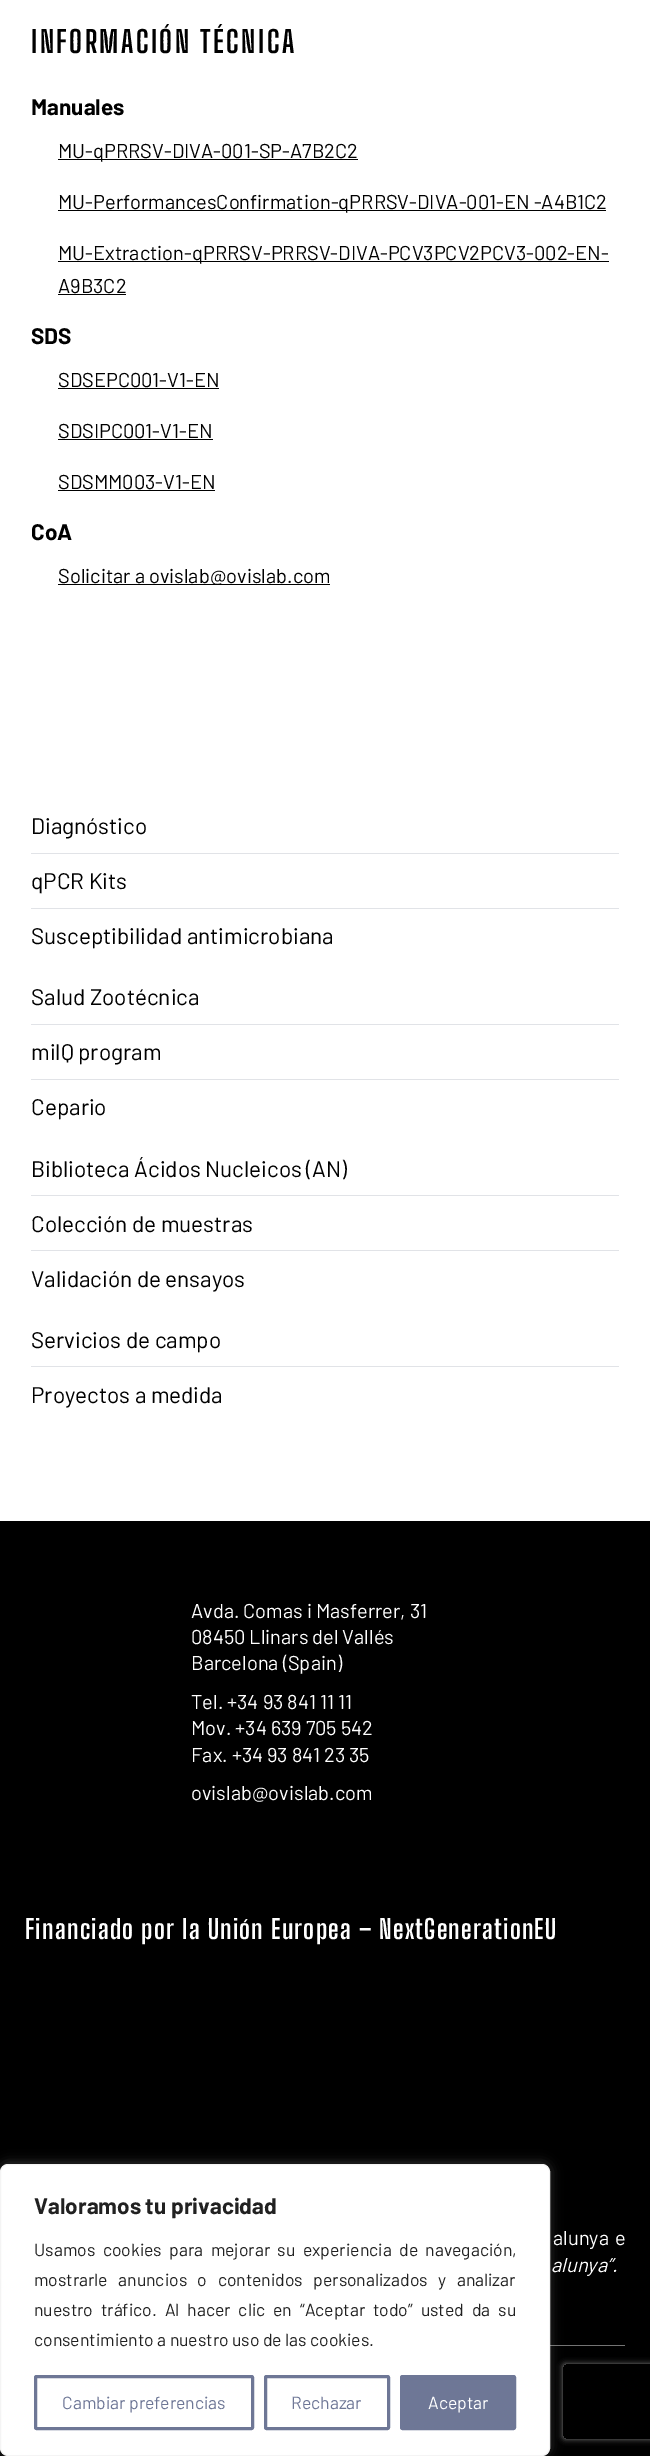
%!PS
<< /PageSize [650 2456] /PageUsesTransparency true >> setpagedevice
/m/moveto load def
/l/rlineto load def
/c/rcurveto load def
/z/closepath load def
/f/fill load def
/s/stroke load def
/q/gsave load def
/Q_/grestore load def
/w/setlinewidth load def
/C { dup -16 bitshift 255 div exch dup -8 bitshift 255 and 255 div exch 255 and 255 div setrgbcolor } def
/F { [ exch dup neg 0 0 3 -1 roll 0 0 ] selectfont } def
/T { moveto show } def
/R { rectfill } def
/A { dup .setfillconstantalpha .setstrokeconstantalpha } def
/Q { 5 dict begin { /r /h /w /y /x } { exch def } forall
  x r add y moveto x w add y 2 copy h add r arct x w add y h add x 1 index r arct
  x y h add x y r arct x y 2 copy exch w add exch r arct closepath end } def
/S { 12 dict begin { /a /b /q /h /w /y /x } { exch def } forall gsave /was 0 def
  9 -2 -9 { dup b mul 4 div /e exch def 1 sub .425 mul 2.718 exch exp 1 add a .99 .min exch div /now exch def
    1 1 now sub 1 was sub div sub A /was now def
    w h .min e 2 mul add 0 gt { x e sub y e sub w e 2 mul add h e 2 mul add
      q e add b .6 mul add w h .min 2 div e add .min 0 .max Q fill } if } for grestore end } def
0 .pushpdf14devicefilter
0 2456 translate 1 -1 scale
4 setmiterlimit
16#FFFFFF C
0 0 650 2456 R
/BigShouldersDisplay-Bold 30 F
16#000000 C
31 53 m 2.5 0 (INFORMACIÓN TÉCNICA) ashow
/Barlow-Bold 22.5 F
(Manuales) 31 115 T
58 159 300 1 R
/Barlow-Regular 20 F
(MU-qPRRSV-DIVA-001-SP-A7B2C2) 58 158 T
58 210 548 1 R
(MU-PerformancesConfirmation-qPRRSV-DIVA-001-EN -A4B1C2) 58 209 T
58 261 551 1 R
(MU-Extraction-qPRRSV-PRRSV-DIVA-PCV3PCV2PCV3-002-EN-) 58 260 T
(A9B3C2) 58 293 T
58 294 68 1 R
/Barlow-Bold 22.5 F
(SDS) 31 344 T
/Barlow-Regular 20 F
(SDSEPC001-V1-EN) 58 387 T
58 388 161 1 R
(SDSIPC001-V1-EN) 58 438 T
58 439 155 1 R
(SDSMM003-V1-EN) 58 489 T
58 490 157 1 R
/Barlow-Bold 22.5 F
(CoA) 31 540 T
58 584 272 1 R
/Barlow-Regular 20 F
(Solicitar a ovislab@ovislab.com) 58 583 T
/Barlow-Regular 22.5 F
(Diagnóstico) 31 834 T
16#E1E3E7 C
31 853 588 1 R
16#000000 C
(qPCR Kits) 31 889 T
16#E1E3E7 C
31 908 588 1 R
16#000000 C
(Susceptibilidad antimicrobiana) 31 944 T
(Salud Zootécnica) 31 1005 T
16#E1E3E7 C
31 1024 588 1 R
16#000000 C
(milQ program) 31 1060 T
16#E1E3E7 C
31 1079 588 1 R
16#000000 C
(Cepario) 31 1115 T
(Biblioteca Ácidos Nucleicos \(AN\)) 31 1177 T
16#E1E3E7 C
31 1195 588 1 R
16#000000 C
(Colección de muestras) 31 1232 T
16#E1E3E7 C
31 1250 588 1 R
16#000000 C
(Validación de ensayos) 31 1287 T
(Servicios de campo) 31 1348 T
16#E1E3E7 C
31 1366 588 1 R
16#000000 C
(Proyectos a medida) 31 1403 T
0 1521 650 935 R
/Barlow-Regular 20 F
16#FFFFFF C
(Avda. Comas i Masferrer, 31) 191 1618 T
(08450 Llinars del Vallés) 191 1644 T
(Barcelona \(Spain\)) 191 1670 T
(Tel. +34 93 841 11 11) 191 1709 T
(Mov. +34 639 705 542) 191 1735 T
(Fax. +34 93 841 23 35) 191 1762 T
(ovislab@ovislab.com) 191 1800 T
/BigShouldersDisplay-Bold 26.25 F
25 1939 m 1.25 0 (Financiado por la Unión Europea – NextGenerationEU) ashow
/Barlow-Regular 20 F
553 2245 m 2 0 32 (alunya e) widthshow
/Barlow-Italic 20 F
(alunya”.) 551 2272 T
16#737373 C
550 2345 75 1 R
16#ACABAB C
0 2163 550 292 8 6 .3 S
16#FFFFFF C
.5 2164.5 549 291 7.5 Q q f Q_
16#F4F4F4 C
s
/Barlow-Bold 22.5 F
16#212121 C
(Valoramos tu privacidad) 34 2214 T
/Barlow-Regular 17.5 F
34 2256 m 4 0 32 (Usamos cookies para mejorar su experiencia de navegación,) widthshow
34 2286 m 7 0 32 (mostrarle anuncios o contenidos personalizados y analizar) widthshow
34 2316 m 4.5 0 32 (nuestro tráfico. Al hacer clic en “Aceptar todo” usted da su) widthshow
(consentimiento a nuestro uso de las cookies.) 34 2346 T
16#6E7796 C
3 w
35.5 2376.5 217 52 1 Q s
(Cambiar preferencias) 62 2409 T
265.5 2376.5 123 52 1 Q s
(Rechazar) 291 2409 T
401.5 2376.5 113 52 1 Q q f Q_
s
16#FFFFFF C
(Aceptar) 428 2409 T
q
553 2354 m 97 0 l 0 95 l -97 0 l z 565.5 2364 m 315 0 l 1.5 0 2.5 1 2.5 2.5 c 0 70 l 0 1.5 -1 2.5 -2.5 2.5 c -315 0 l -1.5 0 -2.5 -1 -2.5 -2.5 c 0 -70 l 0 -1.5 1 -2.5 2.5 -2.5 c z eoclip newpath
16#808080 C
563 2364 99 75 2.5 3 1 S
Q_
.poppdf14devicefilter showpage
